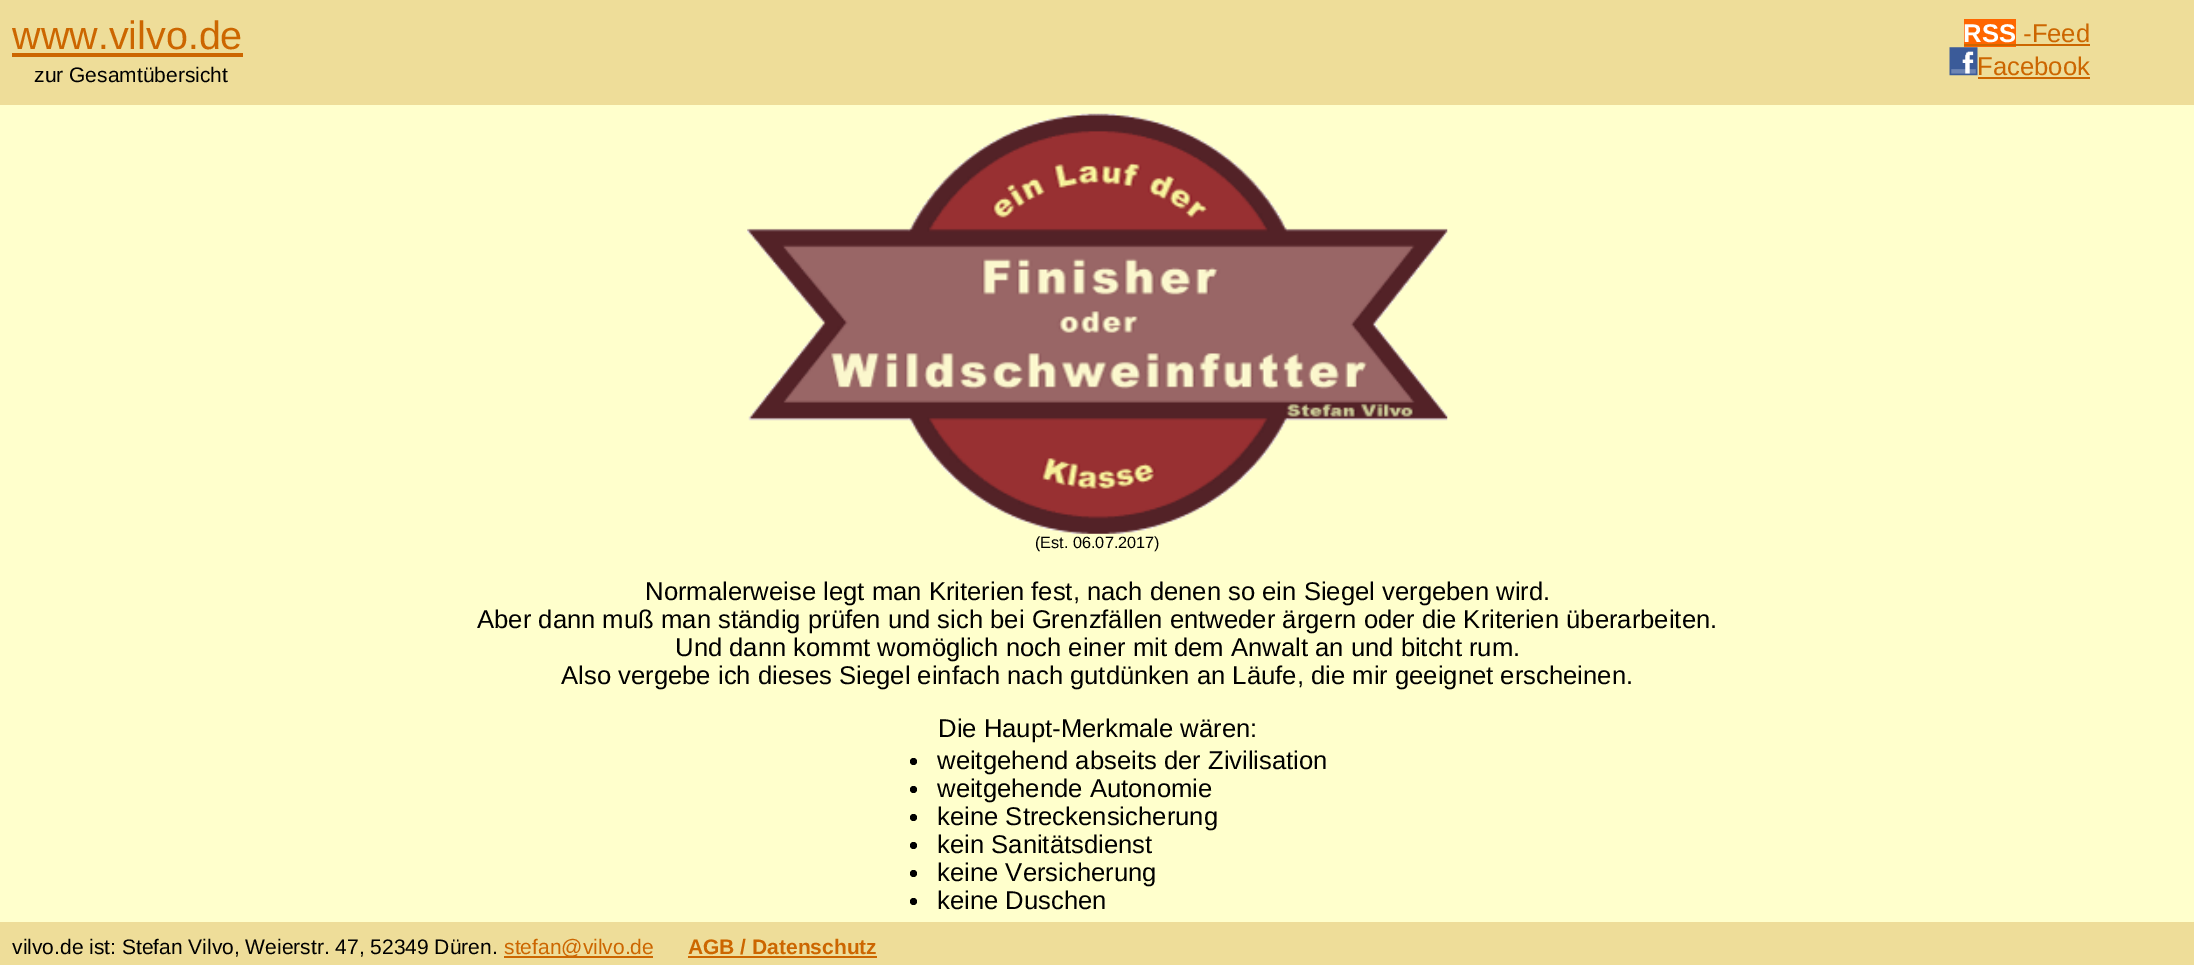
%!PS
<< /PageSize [2194 965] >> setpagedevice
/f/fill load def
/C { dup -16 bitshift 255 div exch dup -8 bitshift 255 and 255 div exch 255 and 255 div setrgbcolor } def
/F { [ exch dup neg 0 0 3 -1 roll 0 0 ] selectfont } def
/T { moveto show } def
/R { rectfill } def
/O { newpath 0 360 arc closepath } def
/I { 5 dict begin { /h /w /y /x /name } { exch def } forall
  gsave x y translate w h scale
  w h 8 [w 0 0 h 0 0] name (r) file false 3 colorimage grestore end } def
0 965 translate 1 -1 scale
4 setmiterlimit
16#FFFFCC C
0 0 2194 965 R
16#EEDD99 C
0 0 2194 105 R
/LiberationSans-Regular 39.5 F
16#CC6600 C
(www.vilvo.de) 12 49 T
12 53 231 4 R
16#FF6600 C
1964 19 52 28 R
/LiberationSans-Bold 25.65 F
16#FFFFFF C
(RSS) 1963 42 T
16#CC6600 C
1964 44 126 2 R
/LiberationSans-Regular 25.65 F
(-Feed) 2023 42 T
(1.rgb) 1949 47 29 29 I
(Facebook) 1977 75 T
1978 77 112 2 R
/LiberationSans-Regular 21 F
16#000000 C
(zur Gesamtübersicht) 34 82 T
(2.rgb) 747 113 701 421 I
/LiberationSans-Regular 16.25 F
(\(Est. 06.07.2017\)) 1035 548 T
/LiberationSans-Regular 25.65 F
(Normalerweise legt man Kriterien fest, nach denen so ein Siegel vergeben wird.) 645 600 T
(Aber dann muß man ständig prüfen und sich bei Grenzfällen entweder ärgern oder die Kriterien überarbeiten.) 477 628 T
(Und dann kommt womöglich noch einer mit dem Anwalt an und bitcht rum.) 675 656 T
(Also vergebe ich dieses Siegel einfach nach gutdünken an Läufe, die mir geeignet erscheinen.) 561 684 T
(Die Haupt-Merkmale wären:) 938 737 T
913.5 761.5 3.5 O f
(weitgehend abseits der Zivilisation) 937 769 T
913.5 789.5 3.5 O f
(weitgehende Autonomie) 937 797 T
913.5 817.5 3.5 O f
(keine Streckensicherung) 937 825 T
913.5 845.5 3.5 O f
(kein Sanitätsdienst) 937 853 T
913.5 873.5 3.5 O f
(keine Versicherung) 937 881 T
913.5 901.5 3.5 O f
(keine Duschen) 937 909 T
16#EEDD99 C
0 922 2194 43 R
/LiberationSans-Regular 21 F
16#000000 C
(vilvo.de ist: Stefan Vilvo, Weierstr. 47, 52349 Düren.) 12 954 T
16#CC6600 C
504 956 149 2 R
(stefan@vilvo.de) 504 954 T
/LiberationSans-Bold 21 F
(AGB / Datenschutz) 688 954 T
688 956 189 2 R
showpage
